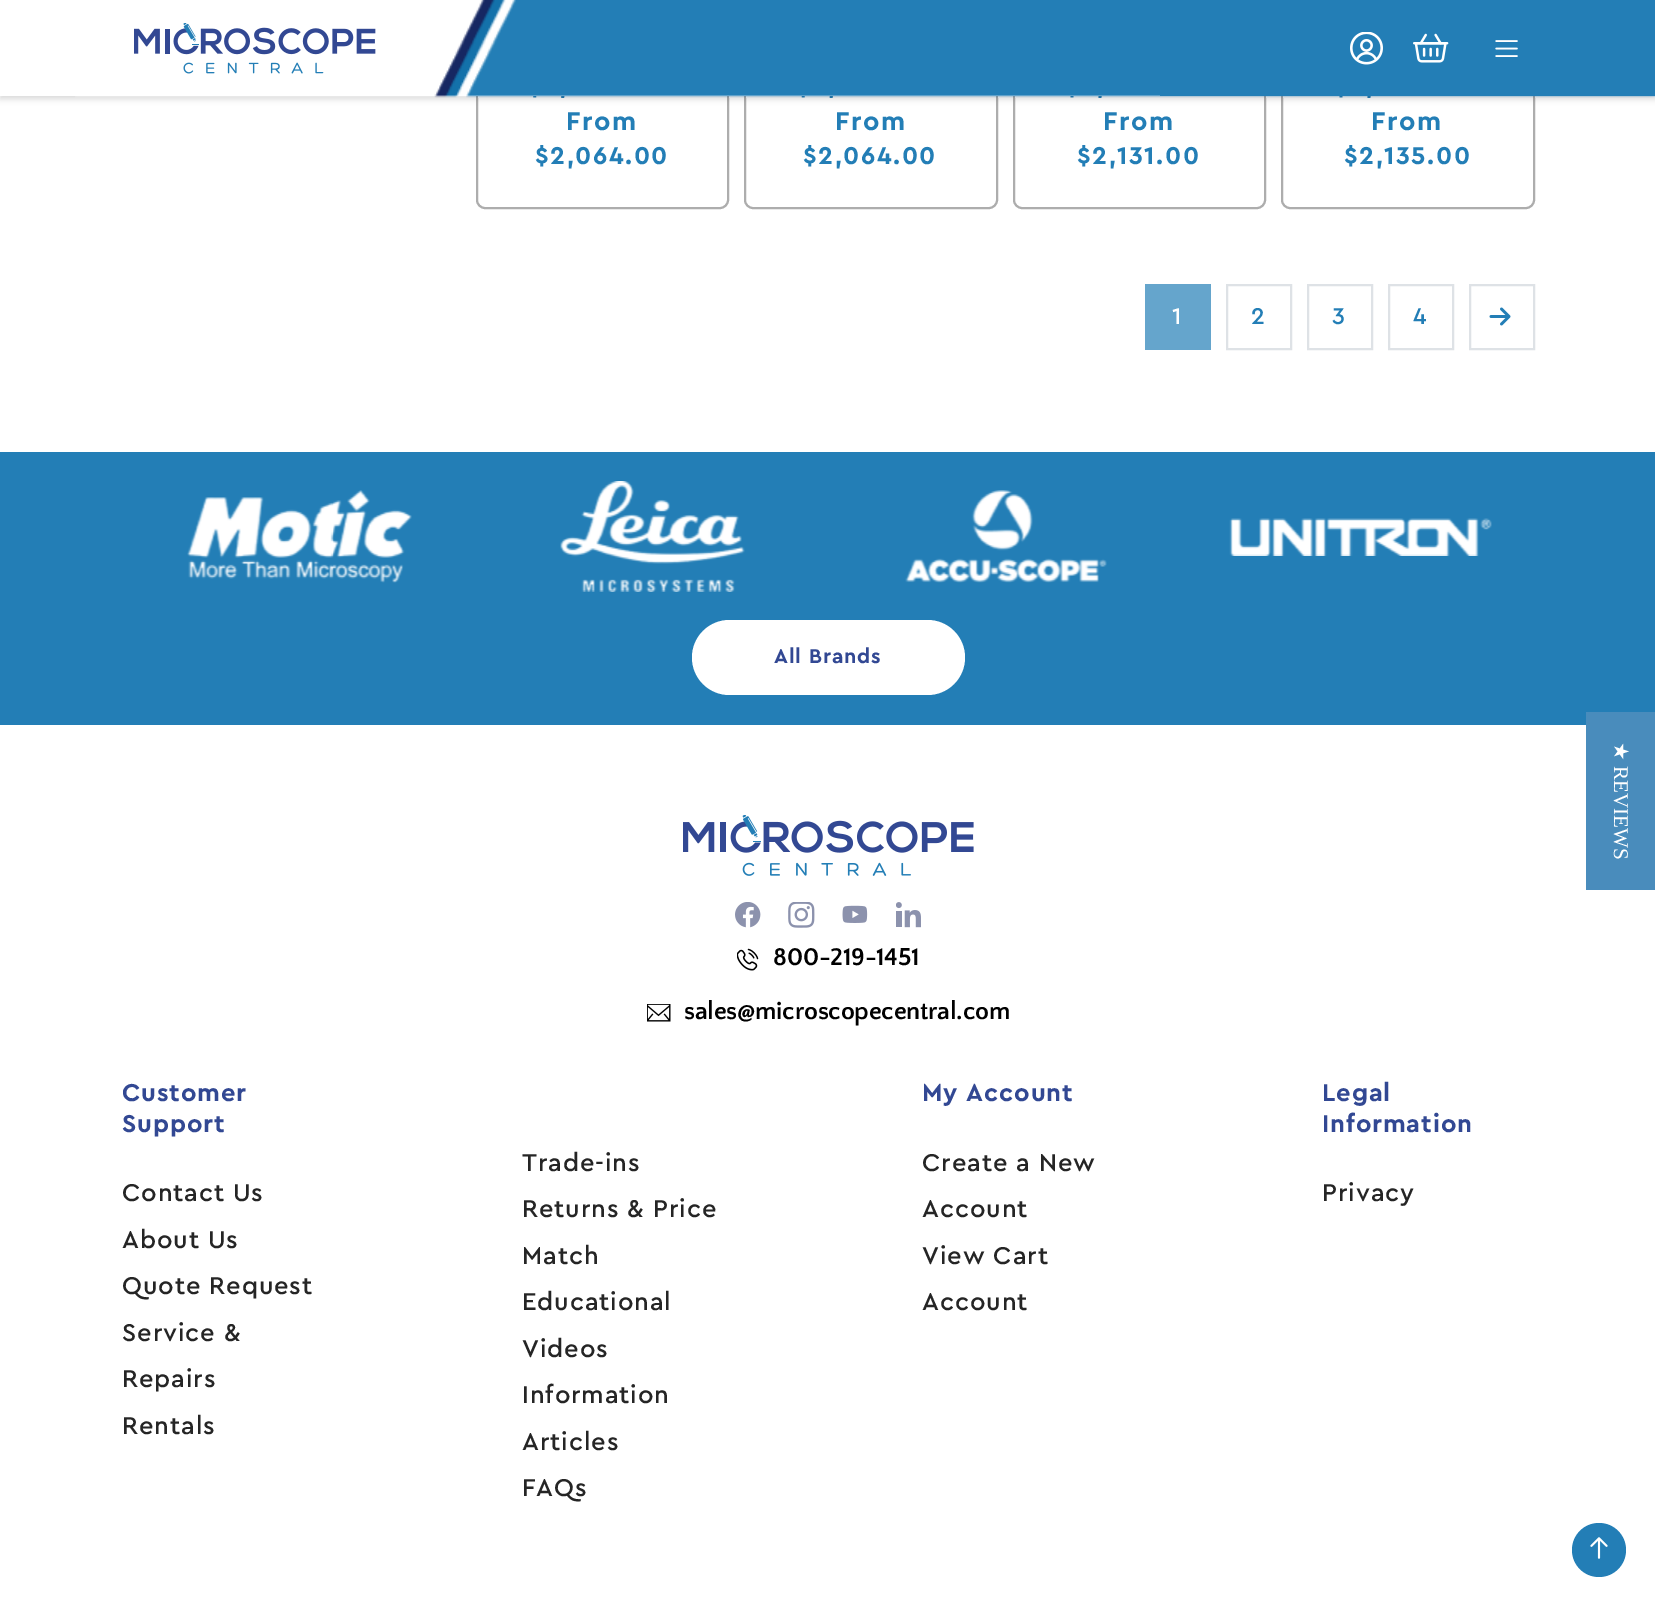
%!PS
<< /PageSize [1655 1602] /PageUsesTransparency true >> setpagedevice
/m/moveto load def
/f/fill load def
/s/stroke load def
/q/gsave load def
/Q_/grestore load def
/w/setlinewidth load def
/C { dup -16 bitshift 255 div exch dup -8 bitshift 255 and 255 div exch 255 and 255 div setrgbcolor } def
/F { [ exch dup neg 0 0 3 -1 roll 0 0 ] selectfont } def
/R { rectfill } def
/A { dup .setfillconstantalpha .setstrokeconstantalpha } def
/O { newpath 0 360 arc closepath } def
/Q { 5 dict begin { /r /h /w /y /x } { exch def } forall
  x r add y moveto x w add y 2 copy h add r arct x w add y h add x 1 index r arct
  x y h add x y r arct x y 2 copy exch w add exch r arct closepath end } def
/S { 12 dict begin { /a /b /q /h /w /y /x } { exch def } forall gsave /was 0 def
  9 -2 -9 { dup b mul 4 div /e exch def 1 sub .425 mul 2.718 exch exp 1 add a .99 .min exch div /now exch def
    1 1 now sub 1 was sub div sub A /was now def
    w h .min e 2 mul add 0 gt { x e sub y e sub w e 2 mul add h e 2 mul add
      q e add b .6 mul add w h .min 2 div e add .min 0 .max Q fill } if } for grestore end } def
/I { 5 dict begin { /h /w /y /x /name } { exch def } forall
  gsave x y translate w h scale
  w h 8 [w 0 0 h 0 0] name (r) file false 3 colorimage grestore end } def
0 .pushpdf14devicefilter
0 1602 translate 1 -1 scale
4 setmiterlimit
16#FFFFFF C
0 0 1655 1602 R
16#ADADAD C
2 w
477 -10 251 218 8 Q s
745 -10 252 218 8 Q s
1014 -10 251 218 8 Q s
1282 -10 252 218 8 Q s
16#000000 C
0 3 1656 96 0 3 .15 S
16#FFFFFF C
0 0 1160 96 R
(1.rgb) 75 0 1580 98 I
(2.rgb) 134 23 242 51 I
(3.rgb) 1350 32 33 33 I
(4.rgb) 1413 33 36 30 I
(5.rgb) 1495 40 23 17 I
16#237EB6 C
1160 95 495 1 R
/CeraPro-Bold 27 F
566 130 m 1.5 0 (From) ashow
/CeraPro-Bold 25.5 F
535 164 m 1.5 0 ($2,064.00) ashow
/CeraPro-Bold 27 F
835 130 m 1.5 0 (From) ashow
/CeraPro-Bold 25.5 F
803 164 m 1.5 0 ($2,064.00) ashow
/CeraPro-Bold 27 F
1103 130 m 1.5 0 (From) ashow
/CeraPro-Bold 25.5 F
1077 164 m 1.5 0 ($2,131.00) ashow
/CeraPro-Bold 27 F
1371 130 m 1.5 0 (From) ashow
/CeraPro-Bold 25.5 F
1344 164 m 1.5 0 ($2,135.00) ashow
16#65A5CC C
1145 284 66 66 R
/CeraPro-Medium 24 F
16#FFFFFF C
1172 324 m .9 0 (1) ashow
16#DEE2E6 C
1227 285 64 64 rectstroke
16#237EB6 C
1251 324 m .9 0 (2) ashow
16#DEE2E6 C
1308 285 64 64 rectstroke
16#237EB6 C
1332 324 m .9 0 (3) ashow
16#DEE2E6 C
1389 285 64 64 rectstroke
16#237EB6 C
1413 324 m .9 0 (4) ashow
16#DEE2E6 C
1470 285 64 64 rectstroke
(6.rgb) 1489 307 22 19 I
16#237EB6 C
0 452 1655 273 R
(7.rgb) 187 490 225 93 I
(8.rgb) 560 481 185 111 I
(9.rgb) 905 490 202 93 I
(10.rgb) 1229 518 263 38 I
16#FFFFFF C
692 620 273 75 37.5 Q f
/CeraPro-Bold 21 F
16#324893 C
774 663 m .9 0 (All Brands) ashow
16#498CBC C
1586 712 69 178 R
/DejaVuSans-Regular 21 F
16#FFFFFF C
q 1614 742 translate 90 rotate 0 0 m (★) show Q_
/LiberationSerif-Regular 21 F
q 1614 766 translate 90 rotate 0 0 m (REVIEWS) show Q_
(11.rgb) 683 815 291 61 I
(12.rgb) 735 902 26 26 I
(13.rgb) 788 902 27 26 I
(14.rgb) 842 905 26 18 I
(15.rgb) 896 902 25 26 I
(16.rgb) 737 948 22 23 I
/QuattrocentoSans-Bold 25.5 F
16#000000 C
773 965 m -.25 0 (800-219-1451) ashow
(17.rgb) 647 1004 24 18 I
684 1019 m -.25 0 (sales@microscopecentral.com) ashow
/CeraPro-Bold 25.5 F
16#324893 C
122 1101 m .9 0 (Customer) ashow
122 1132 m .9 0 (Support) ashow
/CeraPro-Medium 25.5 F
16#252525 C
122 1201 m .9 0 (Contact Us) ashow
122 1248 m .9 0 (About Us) ashow
122 1294 m .9 0 (Quote Request) ashow
122 1341 m .9 0 (Service &) ashow
122 1387 m .9 0 (Repairs) ashow
122 1434 m .9 0 (Rentals) ashow
522 1171 m .9 0 (Trade-ins) ashow
522 1217 m .9 0 (Returns & Price) ashow
522 1264 m .9 0 (Match) ashow
522 1310 m .9 0 (Educational) ashow
522 1357 m .9 0 (Videos) ashow
522 1403 m .9 0 (Information) ashow
522 1450 m .9 0 (Articles) ashow
522 1496 m .9 0 (FAQs) ashow
/CeraPro-Bold 25.5 F
16#324893 C
922 1101 m .9 0 (My Account) ashow
/CeraPro-Medium 25.5 F
16#252525 C
922 1171 m .9 0 (Create a New) ashow
922 1217 m .9 0 (Account) ashow
922 1264 m .9 0 (View Cart) ashow
922 1310 m .9 0 (Account) ashow
/CeraPro-Bold 25.5 F
16#324893 C
1322 1101 m .9 0 (Legal) ashow
1322 1132 m .9 0 (Information) ashow
/CeraPro-Medium 25.5 F
16#252525 C
1322 1201 m .9 0 (Privacy) ashow
16#237EB6 C
1599 1550 27 O f
(18.rgb) 1590 1537 18 22 I
.poppdf14devicefilter showpage
